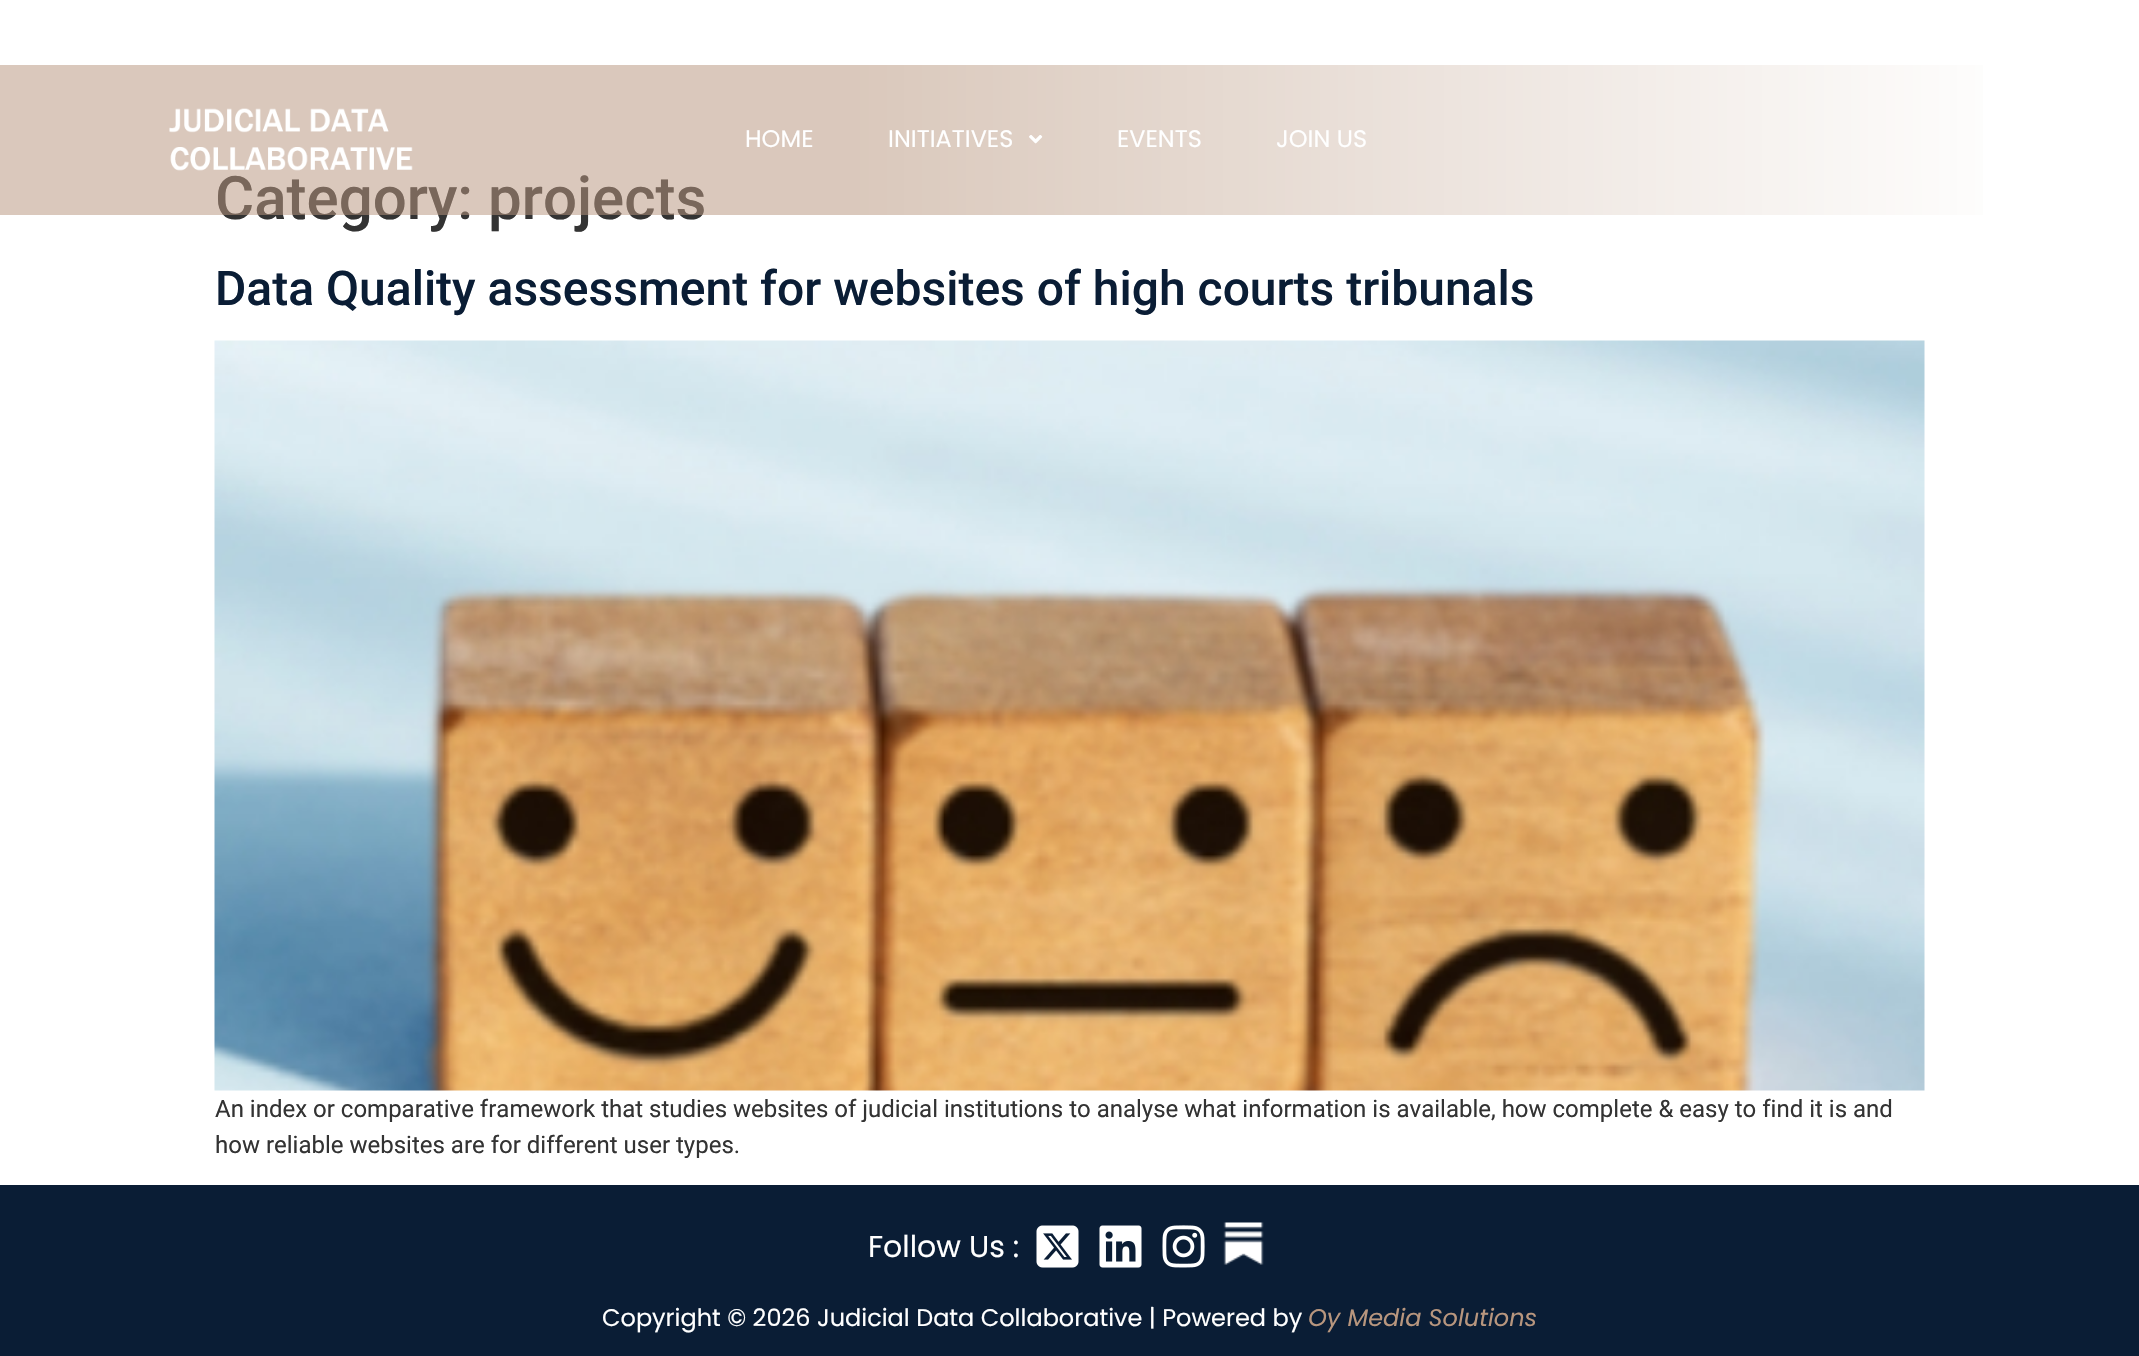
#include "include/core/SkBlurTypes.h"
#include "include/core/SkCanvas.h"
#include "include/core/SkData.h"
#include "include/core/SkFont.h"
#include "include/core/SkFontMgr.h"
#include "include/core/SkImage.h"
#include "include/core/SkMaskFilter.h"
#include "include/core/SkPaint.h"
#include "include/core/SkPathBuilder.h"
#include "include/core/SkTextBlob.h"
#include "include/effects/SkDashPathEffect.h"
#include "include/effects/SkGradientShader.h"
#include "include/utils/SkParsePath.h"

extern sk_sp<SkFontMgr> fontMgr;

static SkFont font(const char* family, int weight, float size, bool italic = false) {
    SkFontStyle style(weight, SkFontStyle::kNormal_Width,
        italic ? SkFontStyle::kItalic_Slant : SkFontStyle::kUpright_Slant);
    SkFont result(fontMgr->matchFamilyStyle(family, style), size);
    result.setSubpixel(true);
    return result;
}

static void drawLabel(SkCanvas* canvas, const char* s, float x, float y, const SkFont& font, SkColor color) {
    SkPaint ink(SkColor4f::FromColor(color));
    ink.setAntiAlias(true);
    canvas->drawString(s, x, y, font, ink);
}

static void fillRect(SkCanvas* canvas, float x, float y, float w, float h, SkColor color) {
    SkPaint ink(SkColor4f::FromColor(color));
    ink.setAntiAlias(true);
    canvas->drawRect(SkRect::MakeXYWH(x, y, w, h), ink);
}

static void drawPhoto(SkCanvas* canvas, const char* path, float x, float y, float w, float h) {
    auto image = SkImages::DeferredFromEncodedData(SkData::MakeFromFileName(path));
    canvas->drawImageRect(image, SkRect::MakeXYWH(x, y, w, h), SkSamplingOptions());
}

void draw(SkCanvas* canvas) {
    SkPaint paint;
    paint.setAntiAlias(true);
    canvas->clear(0xFFFFFFFF);
    SkFont font1 = font("Roboto", 500, 60);
    drawLabel(canvas, "Category: projects", 215, 219, font1, 0xFF333333);
    {
        const SkColor colors[] = {0x85B8967E, 0x00B8967E};
        const float stops[] = {0.4f, 0.95f};
        const SkPoint ends[] = {{0, 140}, {2139, 139}};
        paint.setShader(SkGradientShader::MakeLinear(ends, colors, stops, 2, SkTileMode::kClamp));
        paint.setAlpha(255);
    }
    canvas->drawRect(SkRect::MakeXYWH(0, 65, 1983, 150), paint);
    drawPhoto(canvas, "assets/img1.png", 169, 108, 244, 63);
    SkFont font2 = font("Poppins", 400, 24);
    drawLabel(canvas, "HOME", 745, 147, font2, 0xFFFFFFFF);
    drawLabel(canvas, "INITIATIVES", 888, 147, font2, 0xFFFFFFFF);
    drawPhoto(canvas, "assets/img2.png", 1029, 135, 14, 9);
    drawLabel(canvas, "EVENTS", 1117, 147, font2, 0xFFFFFFFF);
    drawLabel(canvas, "JOIN US", 1276, 147, font2, 0xFFFFFFFF);
    SkFont font3 = font("Roboto", 500, 48);
    drawLabel(canvas, "Data Quality assessment for websites of high courts tribunals", 215, 305, font3, 0xFF0A1D35);
    drawPhoto(canvas, "assets/img3.png", 214, 340, 1711, 751);
    SkFont font4 = font("Roboto", 400, 24);
    drawLabel(canvas, "An index or comparative framework that studies websites of judicial institutions to analyse what information is available, how complete & easy to find it is and", 215, 1117, font4, 0xFF333333);
    drawLabel(canvas, "how reliable websites are for different user types.", 215, 1153, font4, 0xFF333333);
    fillRect(canvas, 0, 1185, 2139, 171, 0xFF0A1D35);
    SkFont font5 = font("Poppins", 400, 30);
    drawLabel(canvas, "Follow Us :", 868, 1257, font5, 0xFFFFFFFF);
    drawPhoto(canvas, "assets/img4.png", 1036, 1225, 43, 43);
    drawPhoto(canvas, "assets/img5.png", 1099, 1225, 43, 43);
    drawPhoto(canvas, "assets/img6.png", 1162, 1225, 43, 43);
    drawPhoto(canvas, "assets/img7.png", 1223, 1222, 41, 43);
    drawLabel(canvas, "Copyright © 2026 Judicial Data Collaborative | Powered by", 602, 1326, font2, 0xFFFFFFFF);
    SkFont font6 = font("Poppins", 400, 24, true);
    drawLabel(canvas, "Oy Media Solutions", 1308, 1326, font6, 0xFFB8967E);
}
